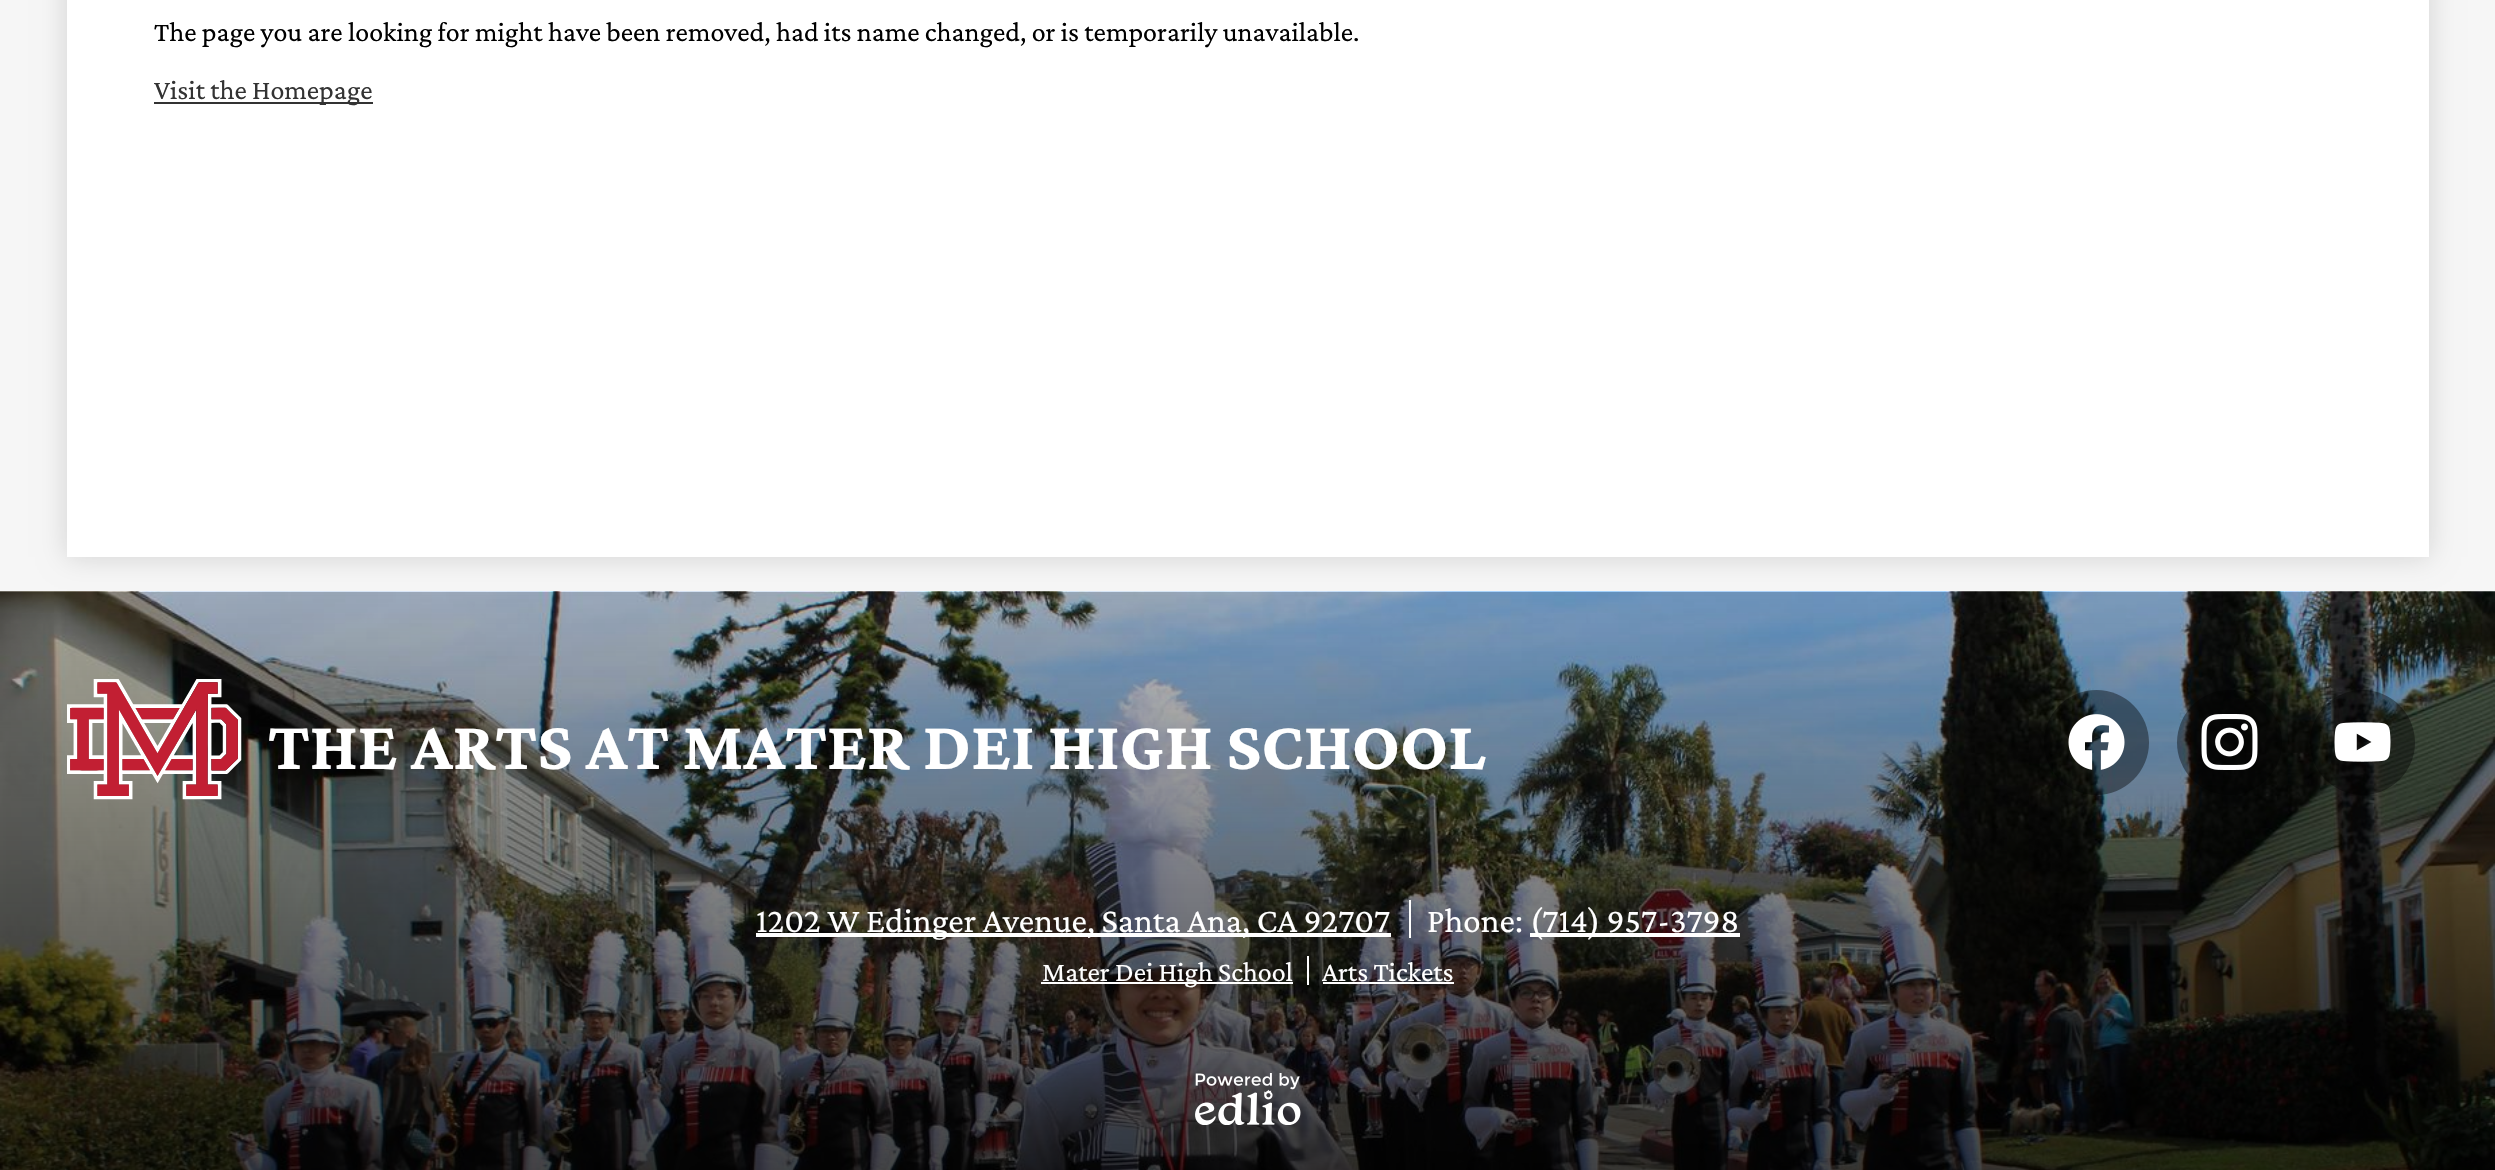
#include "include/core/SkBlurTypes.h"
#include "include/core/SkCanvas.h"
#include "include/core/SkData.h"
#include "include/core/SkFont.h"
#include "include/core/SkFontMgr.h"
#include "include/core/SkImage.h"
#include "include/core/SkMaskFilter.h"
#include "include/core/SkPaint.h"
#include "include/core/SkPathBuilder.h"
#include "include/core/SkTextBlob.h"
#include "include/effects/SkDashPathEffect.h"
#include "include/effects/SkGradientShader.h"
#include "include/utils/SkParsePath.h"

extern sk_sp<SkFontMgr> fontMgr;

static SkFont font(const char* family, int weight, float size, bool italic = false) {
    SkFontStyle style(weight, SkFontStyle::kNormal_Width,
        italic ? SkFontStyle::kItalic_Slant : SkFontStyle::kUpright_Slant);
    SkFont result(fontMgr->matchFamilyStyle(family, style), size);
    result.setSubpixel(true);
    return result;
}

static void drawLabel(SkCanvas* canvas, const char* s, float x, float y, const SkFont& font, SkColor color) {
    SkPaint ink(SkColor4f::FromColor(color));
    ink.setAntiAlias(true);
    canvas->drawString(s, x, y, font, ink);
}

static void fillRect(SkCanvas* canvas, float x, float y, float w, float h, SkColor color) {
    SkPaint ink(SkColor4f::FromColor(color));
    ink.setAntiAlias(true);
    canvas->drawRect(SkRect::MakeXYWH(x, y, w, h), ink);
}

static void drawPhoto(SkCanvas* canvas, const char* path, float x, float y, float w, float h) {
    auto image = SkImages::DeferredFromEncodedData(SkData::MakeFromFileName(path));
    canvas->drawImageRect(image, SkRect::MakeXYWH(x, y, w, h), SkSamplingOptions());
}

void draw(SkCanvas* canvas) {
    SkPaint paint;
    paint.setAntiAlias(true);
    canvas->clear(0xFFF6F6F6);
    drawPhoto(canvas, "assets/img1.png", 0, 591, 2495, 579);
    paint.setColor(0x26000000);
    paint.setMaskFilter(SkMaskFilter::MakeBlur(kNormal_SkBlurStyle, 13));
    canvas->drawRect(SkRect::MakeXYWH(67, -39, 2362, 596), paint);
    paint.setMaskFilter(nullptr);
    fillRect(canvas, 67, 0, 2362, 557, 0xFFFFFFFF);
    SkFont font1 = font("Crimson Pro", 400, 28);
    drawLabel(canvas, "The page you are looking for might have been removed, had its name changed, or is temporarily unavailable.", 154, 41, font1, 0xFF000000);
    fillRect(canvas, 154, 102, 219, 2, 0xFF333333);
    drawLabel(canvas, "Visit the Homepage", 154, 99, font1, 0xFF333333);
    drawPhoto(canvas, "assets/img2.png", 67, 679, 175, 121);
    SkFont font2 = font("Crimson Pro", 700, 70);
    drawLabel(canvas, "THE ARTS AT MATER DEI HIGH SCHOOL", 268, 769, font2, 0xFFFFFFFF);
    paint.setColor(0x66000000);
    canvas->drawCircle(2096.5f, 742.5f, 52.5f, paint);
    drawPhoto(canvas, "assets/img3.png", 2068, 714, 57, 56);
    canvas->drawCircle(2229.5f, 742.5f, 52.5f, paint);
    drawPhoto(canvas, "assets/img4.png", 2201, 714, 57, 56);
    canvas->drawCircle(2362.5f, 742.5f, 52.5f, paint);
    drawPhoto(canvas, "assets/img5.png", 2334, 722, 57, 40);
    fillRect(canvas, 1409, 900, 2, 38, 0xFFFFFFFF);
    fillRect(canvas, 756, 933, 635, 4, 0xFFFFFFFF);
    SkFont font3 = font("Crimson Pro", 400, 35);
    drawLabel(canvas, "1202 W Edinger Avenue, Santa Ana, CA 92707", 756, 932, font3, 0xFFFFFFFF);
    drawLabel(canvas, "Phone:", 1427, 932, font3, 0xFFFFFFFF);
    fillRect(canvas, 1530, 933, 210, 4, 0xFFFFFFFF);
    drawLabel(canvas, "(714) 957-3798", 1530, 932, font3, 0xFFFFFFFF);
    fillRect(canvas, 1307, 956, 2, 29, 0xFFFFFFFF);
    fillRect(canvas, 1041, 982, 252, 2, 0xFFFFFFFF);
    drawLabel(canvas, "Mater Dei High School", 1042, 981, font1, 0xFFFFFFFF);
    drawLabel(canvas, "Arts Tickets", 1322, 981, font1, 0xFFFFFFFF);
    fillRect(canvas, 1323, 982, 131, 2, 0xFFFFFFFF);
    drawPhoto(canvas, "assets/img6.png", 1195, 1073, 106, 52);
}
